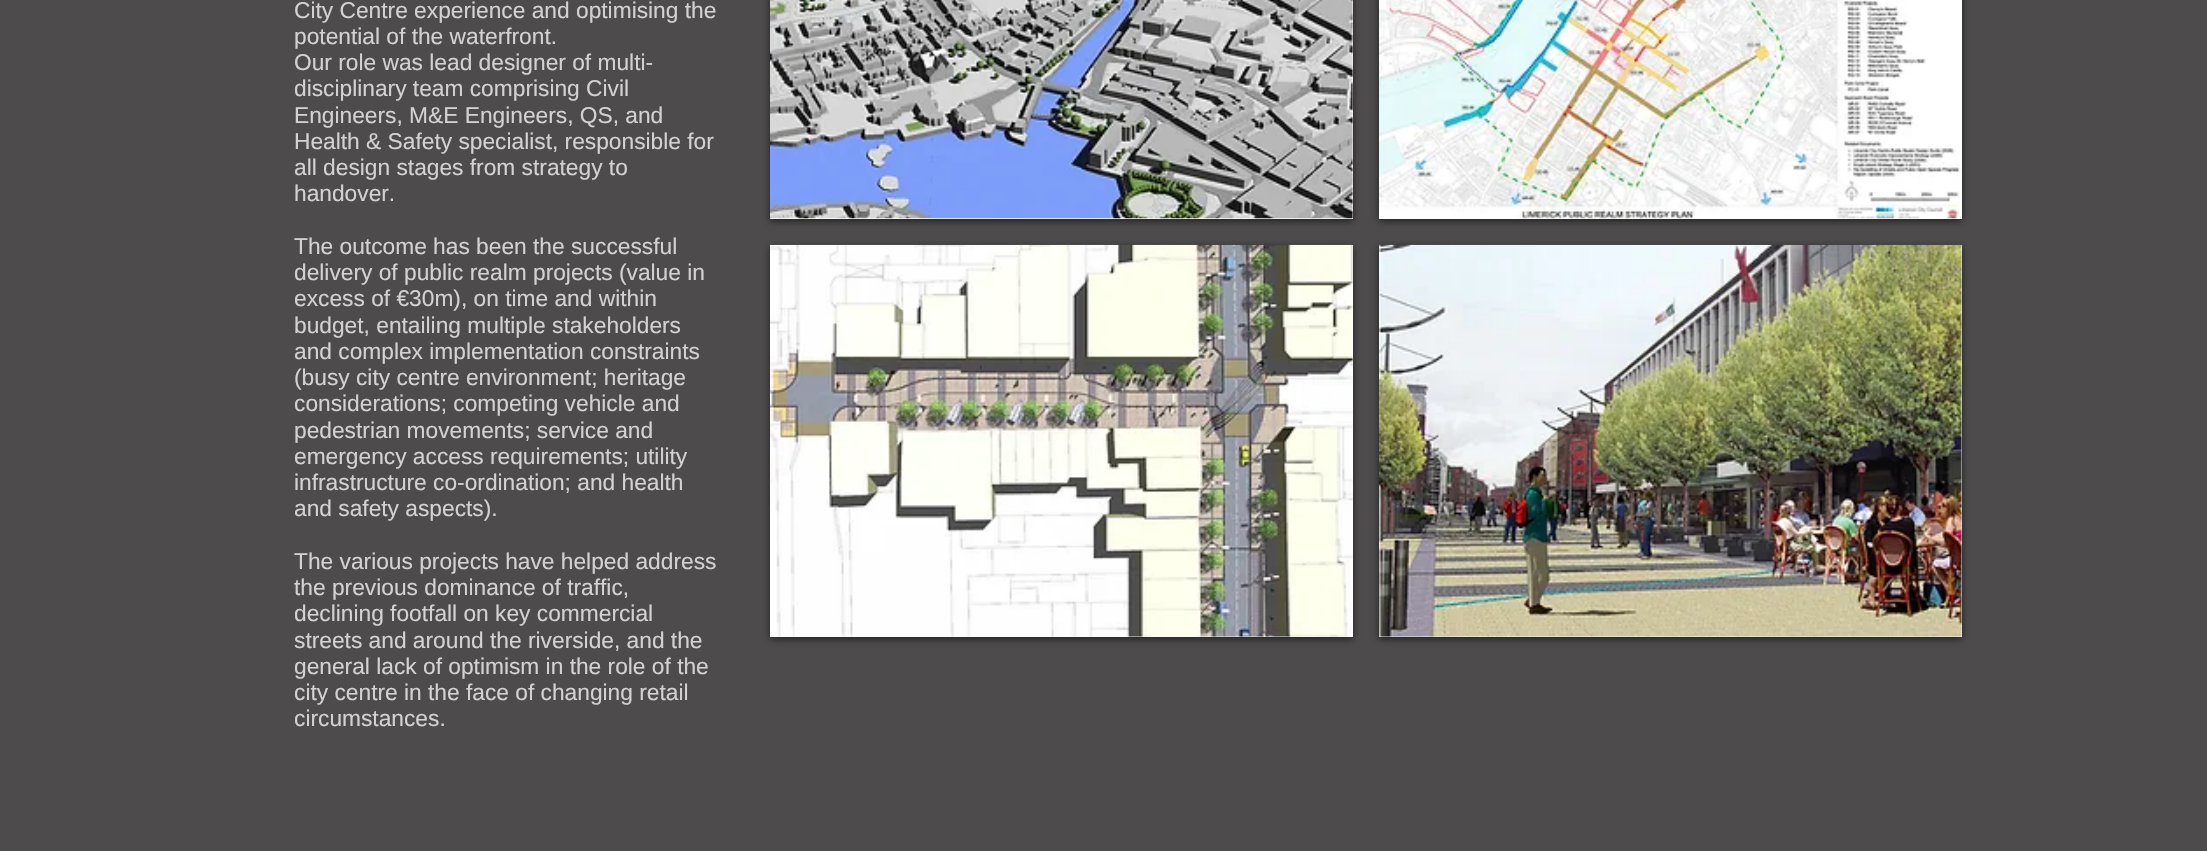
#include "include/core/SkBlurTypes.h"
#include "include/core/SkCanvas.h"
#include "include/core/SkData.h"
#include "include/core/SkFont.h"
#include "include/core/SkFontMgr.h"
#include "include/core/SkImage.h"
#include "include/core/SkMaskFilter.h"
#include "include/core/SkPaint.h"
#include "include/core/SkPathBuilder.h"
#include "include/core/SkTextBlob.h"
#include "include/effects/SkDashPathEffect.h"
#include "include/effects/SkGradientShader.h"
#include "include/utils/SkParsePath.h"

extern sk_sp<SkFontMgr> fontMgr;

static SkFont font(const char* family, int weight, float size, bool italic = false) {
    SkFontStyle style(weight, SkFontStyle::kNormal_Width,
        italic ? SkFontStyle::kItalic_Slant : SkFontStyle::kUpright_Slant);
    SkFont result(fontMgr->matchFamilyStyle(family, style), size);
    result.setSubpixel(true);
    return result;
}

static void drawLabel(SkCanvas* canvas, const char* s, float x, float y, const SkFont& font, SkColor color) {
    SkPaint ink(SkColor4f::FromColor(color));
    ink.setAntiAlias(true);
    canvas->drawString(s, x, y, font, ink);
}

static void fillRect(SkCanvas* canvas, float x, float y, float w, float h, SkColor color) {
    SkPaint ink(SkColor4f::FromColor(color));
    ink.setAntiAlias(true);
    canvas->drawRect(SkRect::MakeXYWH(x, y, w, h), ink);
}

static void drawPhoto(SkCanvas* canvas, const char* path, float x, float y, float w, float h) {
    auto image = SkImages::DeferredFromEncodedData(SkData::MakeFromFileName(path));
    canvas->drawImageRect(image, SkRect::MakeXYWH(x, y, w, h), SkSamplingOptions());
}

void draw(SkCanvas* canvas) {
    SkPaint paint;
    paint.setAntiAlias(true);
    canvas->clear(0xFF4D4B4B);
    SkFont font1 = font("Liberation Sans", 400, 22.75f);
    drawLabel(canvas, "City Centre experience and optimising the", 294, 18, font1, 0xFFD2D2D2);
    drawLabel(canvas, "potential of the waterfront.", 294, 44, font1, 0xFFD2D2D2);
    drawLabel(canvas, "Our role was lead designer of multi-", 294, 70, font1, 0xFFD2D2D2);
    drawLabel(canvas, "disciplinary team comprising Civil", 294, 96, font1, 0xFFD2D2D2);
    drawLabel(canvas, "Engineers, M&E Engineers, QS, and", 294, 123, font1, 0xFFD2D2D2);
    drawLabel(canvas, "Health & Safety specialist, responsible for", 294, 149, font1, 0xFFD2D2D2);
    drawLabel(canvas, "all design stages from strategy to", 294, 175, font1, 0xFFD2D2D2);
    drawLabel(canvas, "handover.", 294, 201, font1, 0xFFD2D2D2);
    drawLabel(canvas, "The outcome has been the successful", 294, 254, font1, 0xFFD2D2D2);
    drawLabel(canvas, "delivery of public realm projects (value in", 294, 280, font1, 0xFFD2D2D2);
    drawLabel(canvas, "excess of €30m), on time and within", 294, 306, font1, 0xFFD2D2D2);
    drawLabel(canvas, "budget, entailing multiple stakeholders", 294, 333, font1, 0xFFD2D2D2);
    drawLabel(canvas, "and complex implementation constraints", 294, 359, font1, 0xFFD2D2D2);
    drawLabel(canvas, "(busy city centre environment; heritage", 294, 385, font1, 0xFFD2D2D2);
    drawLabel(canvas, "considerations; competing vehicle and", 294, 411, font1, 0xFFD2D2D2);
    drawLabel(canvas, "pedestrian movements; service and", 294, 438, font1, 0xFFD2D2D2);
    drawLabel(canvas, "emergency access requirements; utility", 294, 464, font1, 0xFFD2D2D2);
    drawLabel(canvas, "infrastructure co-ordination; and health", 294, 490, font1, 0xFFD2D2D2);
    drawLabel(canvas, "and safety aspects).", 294, 516, font1, 0xFFD2D2D2);
    drawLabel(canvas, "The various projects have helped address", 294, 569, font1, 0xFFD2D2D2);
    drawLabel(canvas, "the previous dominance of traffic,", 294, 595, font1, 0xFFD2D2D2);
    drawLabel(canvas, "declining footfall on key commercial", 294, 621, font1, 0xFFD2D2D2);
    drawLabel(canvas, "streets and around the riverside, and the", 294, 648, font1, 0xFFD2D2D2);
    drawLabel(canvas, "general lack of optimism in the role of the", 294, 674, font1, 0xFFD2D2D2);
    drawLabel(canvas, "city centre in the face of changing retail", 294, 700, font1, 0xFFD2D2D2);
    drawLabel(canvas, "circumstances.", 294, 726, font1, 0xFFD2D2D2);
    paint.setColor(0x99000000);
    paint.setMaskFilter(SkMaskFilter::MakeBlur(kNormal_SkBlurStyle, 3.5f));
    canvas->drawRect(SkRect::MakeXYWH(770, -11, 583, 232), paint);
    paint.setMaskFilter(nullptr);
    fillRect(canvas, 770, 0, 583, 219, 0xFFFFFFFF);
    drawPhoto(canvas, "assets/img1.png", 770, 0, 583, 219);
    paint.setMaskFilter(SkMaskFilter::MakeBlur(kNormal_SkBlurStyle, 3.5f));
    canvas->drawRect(SkRect::MakeXYWH(1379, -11, 583, 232), paint);
    paint.setMaskFilter(nullptr);
    fillRect(canvas, 1379, 0, 583, 219, 0xFFFFFFFF);
    drawPhoto(canvas, "assets/img2.png", 1379, 0, 583, 219);
    paint.setMaskFilter(SkMaskFilter::MakeBlur(kNormal_SkBlurStyle, 3.5f));
    canvas->drawRect(SkRect::MakeXYWH(770, 247, 583, 392), paint);
    paint.setMaskFilter(nullptr);
    fillRect(canvas, 770, 245, 583, 392, 0xFFFFFFFF);
    drawPhoto(canvas, "assets/img3.png", 770, 244, 583, 393);
    paint.setMaskFilter(SkMaskFilter::MakeBlur(kNormal_SkBlurStyle, 3.5f));
    canvas->drawRect(SkRect::MakeXYWH(1379, 247, 583, 392), paint);
    paint.setMaskFilter(nullptr);
    fillRect(canvas, 1379, 245, 583, 392, 0xFFFFFFFF);
    drawPhoto(canvas, "assets/img4.png", 1379, 244, 583, 393);
}
